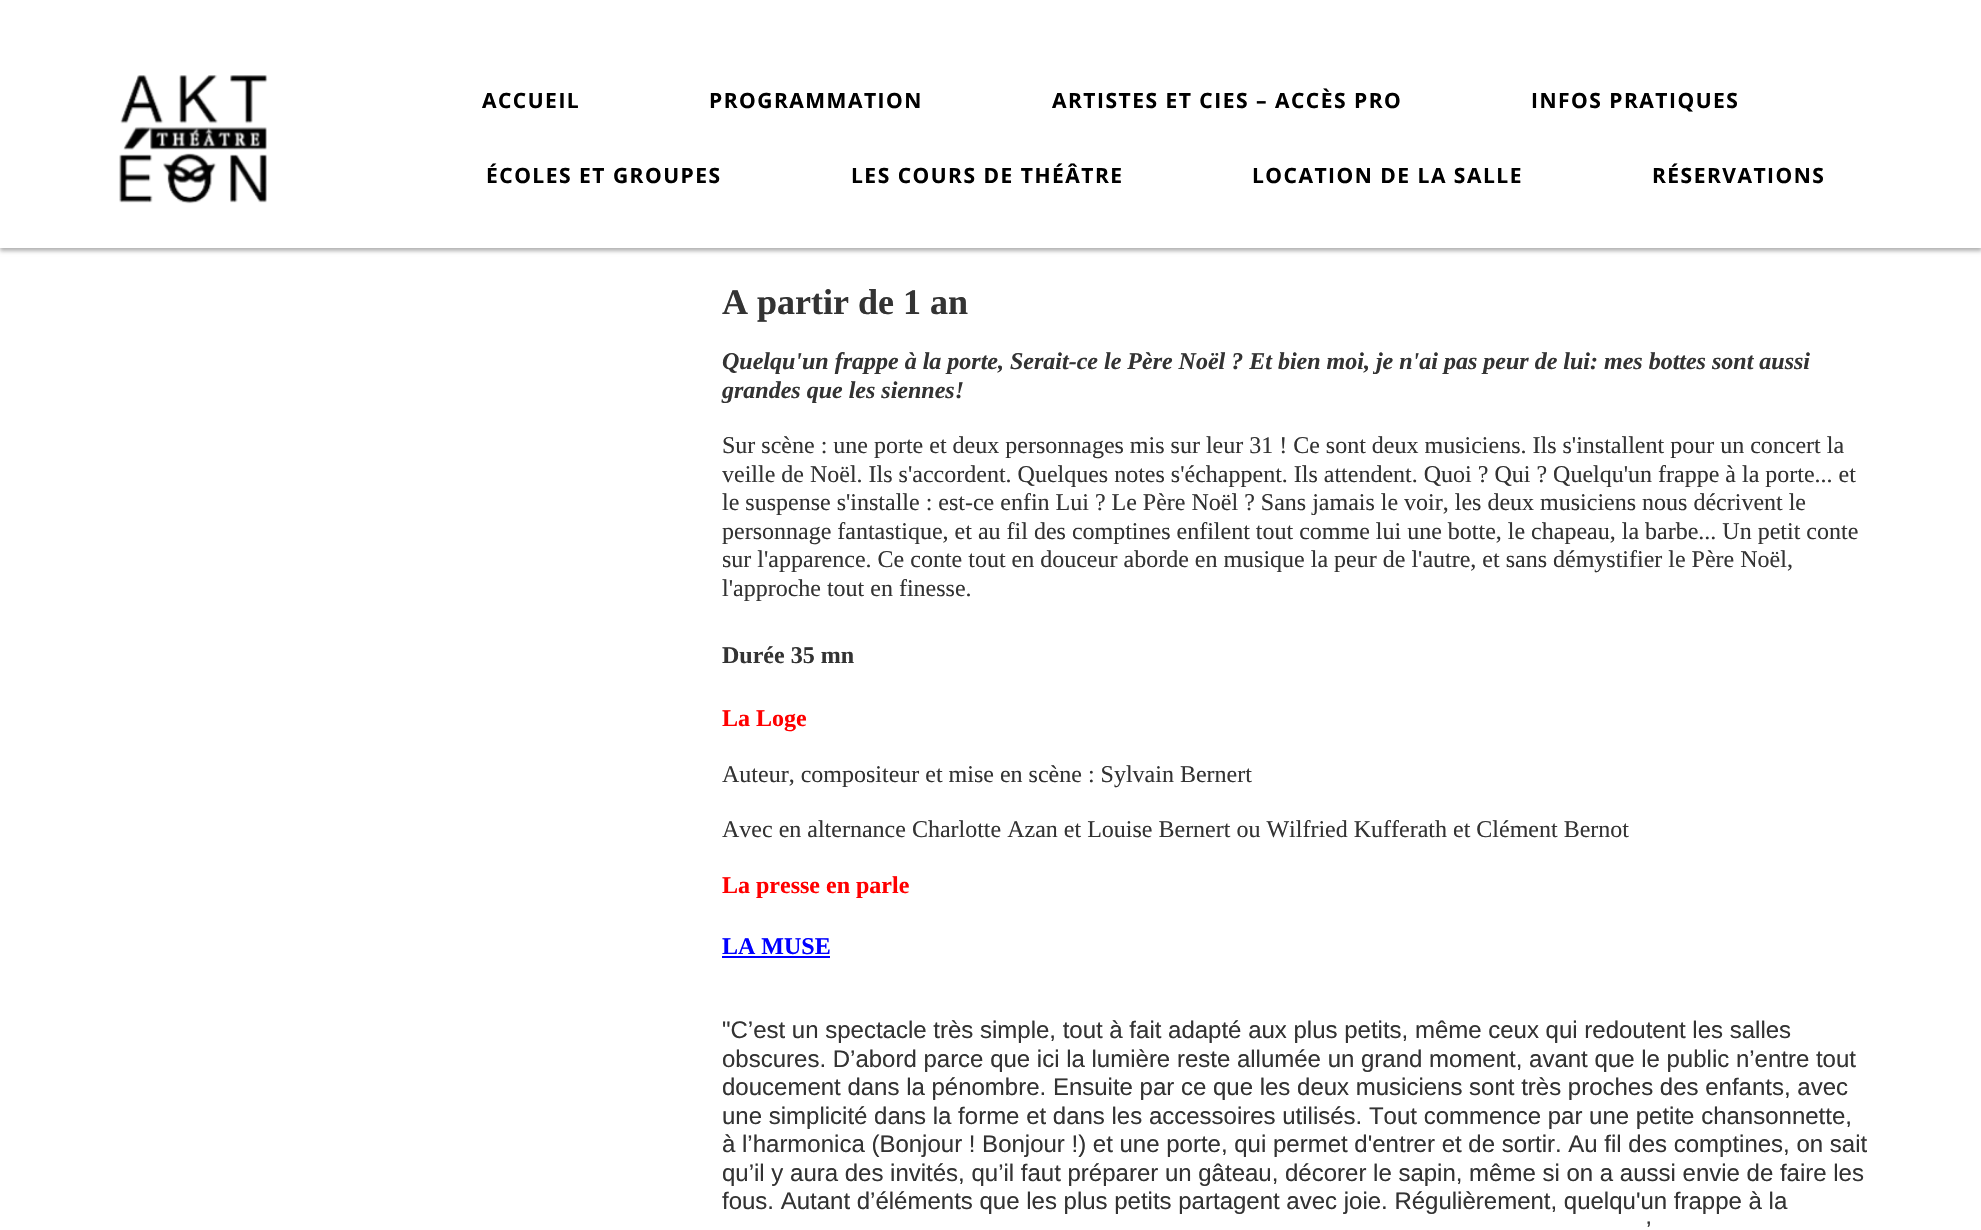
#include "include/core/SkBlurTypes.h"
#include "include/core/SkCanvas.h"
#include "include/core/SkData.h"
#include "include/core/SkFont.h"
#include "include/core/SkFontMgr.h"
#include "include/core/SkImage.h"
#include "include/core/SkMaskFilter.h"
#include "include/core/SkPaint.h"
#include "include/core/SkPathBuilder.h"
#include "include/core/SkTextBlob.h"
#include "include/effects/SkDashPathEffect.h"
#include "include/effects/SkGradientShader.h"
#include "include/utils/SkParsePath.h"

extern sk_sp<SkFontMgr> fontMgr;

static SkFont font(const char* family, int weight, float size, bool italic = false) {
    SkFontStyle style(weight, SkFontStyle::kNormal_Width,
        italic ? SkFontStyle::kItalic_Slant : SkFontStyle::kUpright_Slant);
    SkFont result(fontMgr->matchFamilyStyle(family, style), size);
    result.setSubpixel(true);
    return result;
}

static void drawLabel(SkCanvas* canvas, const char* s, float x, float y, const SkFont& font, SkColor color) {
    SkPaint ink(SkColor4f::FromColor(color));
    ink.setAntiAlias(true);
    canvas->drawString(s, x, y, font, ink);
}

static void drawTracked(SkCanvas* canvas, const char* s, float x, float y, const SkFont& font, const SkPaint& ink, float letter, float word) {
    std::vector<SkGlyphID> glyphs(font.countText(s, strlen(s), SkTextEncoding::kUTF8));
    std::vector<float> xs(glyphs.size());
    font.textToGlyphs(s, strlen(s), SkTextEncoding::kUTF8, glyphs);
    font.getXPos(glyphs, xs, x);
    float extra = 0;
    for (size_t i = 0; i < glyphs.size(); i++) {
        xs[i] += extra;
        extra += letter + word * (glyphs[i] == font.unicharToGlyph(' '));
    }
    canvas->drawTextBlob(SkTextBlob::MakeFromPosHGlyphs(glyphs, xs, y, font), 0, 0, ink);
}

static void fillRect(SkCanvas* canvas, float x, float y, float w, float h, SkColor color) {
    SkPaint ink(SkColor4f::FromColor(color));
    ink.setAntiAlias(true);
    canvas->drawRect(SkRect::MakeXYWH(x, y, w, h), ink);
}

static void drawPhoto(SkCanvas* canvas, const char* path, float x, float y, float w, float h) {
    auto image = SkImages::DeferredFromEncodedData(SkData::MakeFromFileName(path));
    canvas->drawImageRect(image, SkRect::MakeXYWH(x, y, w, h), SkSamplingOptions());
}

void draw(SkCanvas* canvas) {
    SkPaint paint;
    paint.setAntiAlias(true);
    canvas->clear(0xFFFFFFFF);
    paint.setColor(0x4D000000);
    paint.setMaskFilter(SkMaskFilter::MakeBlur(kNormal_SkBlurStyle, 2));
    canvas->drawRect(SkRect::MakeXYWH(0, 3, 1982, 248), paint);
    paint.setMaskFilter(nullptr);
    fillRect(canvas, 0, 0, 1981, 248, 0xFFFFFFFF);
    drawPhoto(canvas, "assets/img1.png", 119, 75, 149, 129);
    SkFont font1 = font("Open Sans", 700, 21);
    paint.setColor(0xFF000000);
    drawTracked(canvas, "ACCUEIL", 482, 108, font1, paint, 1.5f, 0);
    drawTracked(canvas, "PROGRAMMATION", 709, 108, font1, paint, 1.5f, 0);
    drawTracked(canvas, "ARTISTES ET CIES – ACCÈS PRO", 1052, 108, font1, paint, 1.5f, 0);
    drawTracked(canvas, "INFOS PRATIQUES", 1531, 108, font1, paint, 1.5f, 0);
    drawTracked(canvas, "ÉCOLES ET GROUPES", 486, 183, font1, paint, 1.5f, 0);
    drawTracked(canvas, "LES COURS DE THÉÂTRE", 851, 183, font1, paint, 1.5f, 0);
    drawTracked(canvas, "LOCATION DE LA SALLE", 1252, 183, font1, paint, 1.5f, 0);
    drawTracked(canvas, "RÉSERVATIONS", 1652, 183, font1, paint, 1.5f, 0);
    SkFont font2 = font("Liberation Serif", 700, 36);
    drawLabel(canvas, "A partir de 1 an", 722, 314, font2, 0xFF333333);
    SkFont font3 = font("Liberation Serif", 700, 24, true);
    drawLabel(canvas, "Quelqu'un frappe à la porte, Serait-ce le Père Noël ? Et bien moi, je n'ai pas peur de lui: mes bottes sont aussi", 722, 369, font3, 0xFF333333);
    drawLabel(canvas, "grandes que les siennes!", 722, 398, font3, 0xFF333333);
    SkFont font4 = font("Liberation Serif", 400, 24);
    drawLabel(canvas, "Sur scène : une porte et deux personnages mis sur leur 31 ! Ce sont deux musiciens. Ils s'installent pour un concert la", 722, 453, font4, 0xFF333333);
    drawLabel(canvas, "veille de Noël. Ils s'accordent. Quelques notes s'échappent. Ils attendent. Quoi ? Qui ? Quelqu'un frappe à la porte... et", 722, 482, font4, 0xFF333333);
    drawLabel(canvas, "le suspense s'installe : est-ce enfin Lui ? Le Père Noël ? Sans jamais le voir, les deux musiciens nous décrivent le", 722, 510, font4, 0xFF333333);
    drawLabel(canvas, "personnage fantastique, et au fil des comptines enfilent tout comme lui une botte, le chapeau, la barbe... Un petit conte", 722, 539, font4, 0xFF333333);
    drawLabel(canvas, "sur l'apparence. Ce conte tout en douceur aborde en musique la peur de l'autre, et sans démystifier le Père Noël,", 722, 567, font4, 0xFF333333);
    drawLabel(canvas, "l'approche tout en finesse.", 722, 596, font4, 0xFF333333);
    SkFont font5 = font("Liberation Serif", 700, 24);
    drawLabel(canvas, "Durée 35 mn", 722, 663, font5, 0xFF333333);
    drawLabel(canvas, "La Loge", 722, 726, font5, 0xFFFF0000);
    drawLabel(canvas, "Auteur, compositeur et mise en scène : Sylvain Bernert", 722, 782, font4, 0xFF333333);
    drawLabel(canvas, "Avec en alternance Charlotte Azan et Louise Bernert ou Wilfried Kufferath et Clément Bernot", 722, 837, font4, 0xFF333333);
    drawLabel(canvas, "La presse en parle", 722, 893, font5, 0xFFFF0000);
    drawLabel(canvas, "LA MUSE", 722, 954, font5, 0xFF0000FF);
    fillRect(canvas, 722, 956, 108, 2, 0xFF0000FF);
    SkFont font6 = font("Liberation Sans", 400, 24);
    drawLabel(canvas, "\"C’est un spectacle très simple, tout à fait adapté aux plus petits, même ceux qui redoutent les salles", 722, 1038, font6, 0xFF333333);
    drawLabel(canvas, "obscures. D’abord parce que ici la lumière reste allumée un grand moment, avant que le public n’entre tout", 722, 1067, font6, 0xFF333333);
    drawLabel(canvas, "doucement dans la pénombre. Ensuite par ce que les deux musiciens sont très proches des enfants, avec", 722, 1095, font6, 0xFF333333);
    drawLabel(canvas, "une simplicité dans la forme et dans les accessoires utilisés. Tout commence par une petite chansonnette,", 722, 1124, font6, 0xFF333333);
    drawLabel(canvas, "à l’harmonica (Bonjour ! Bonjour !) et une porte, qui permet d'entrer et de sortir. Au fil des comptines, on sait", 722, 1152, font6, 0xFF333333);
    drawLabel(canvas, "qu’il y aura des invités, qu’il faut préparer un gâteau, décorer le sapin, même si on a aussi envie de faire les", 722, 1181, font6, 0xFF333333);
    drawLabel(canvas, "fous. Autant d’éléments que les plus petits partagent avec joie. Régulièrement, quelqu'un frappe à la", 722, 1209, font6, 0xFF333333);
    drawLabel(canvas, "’", 1646, 1238, font6, 0xFF333333);
}
